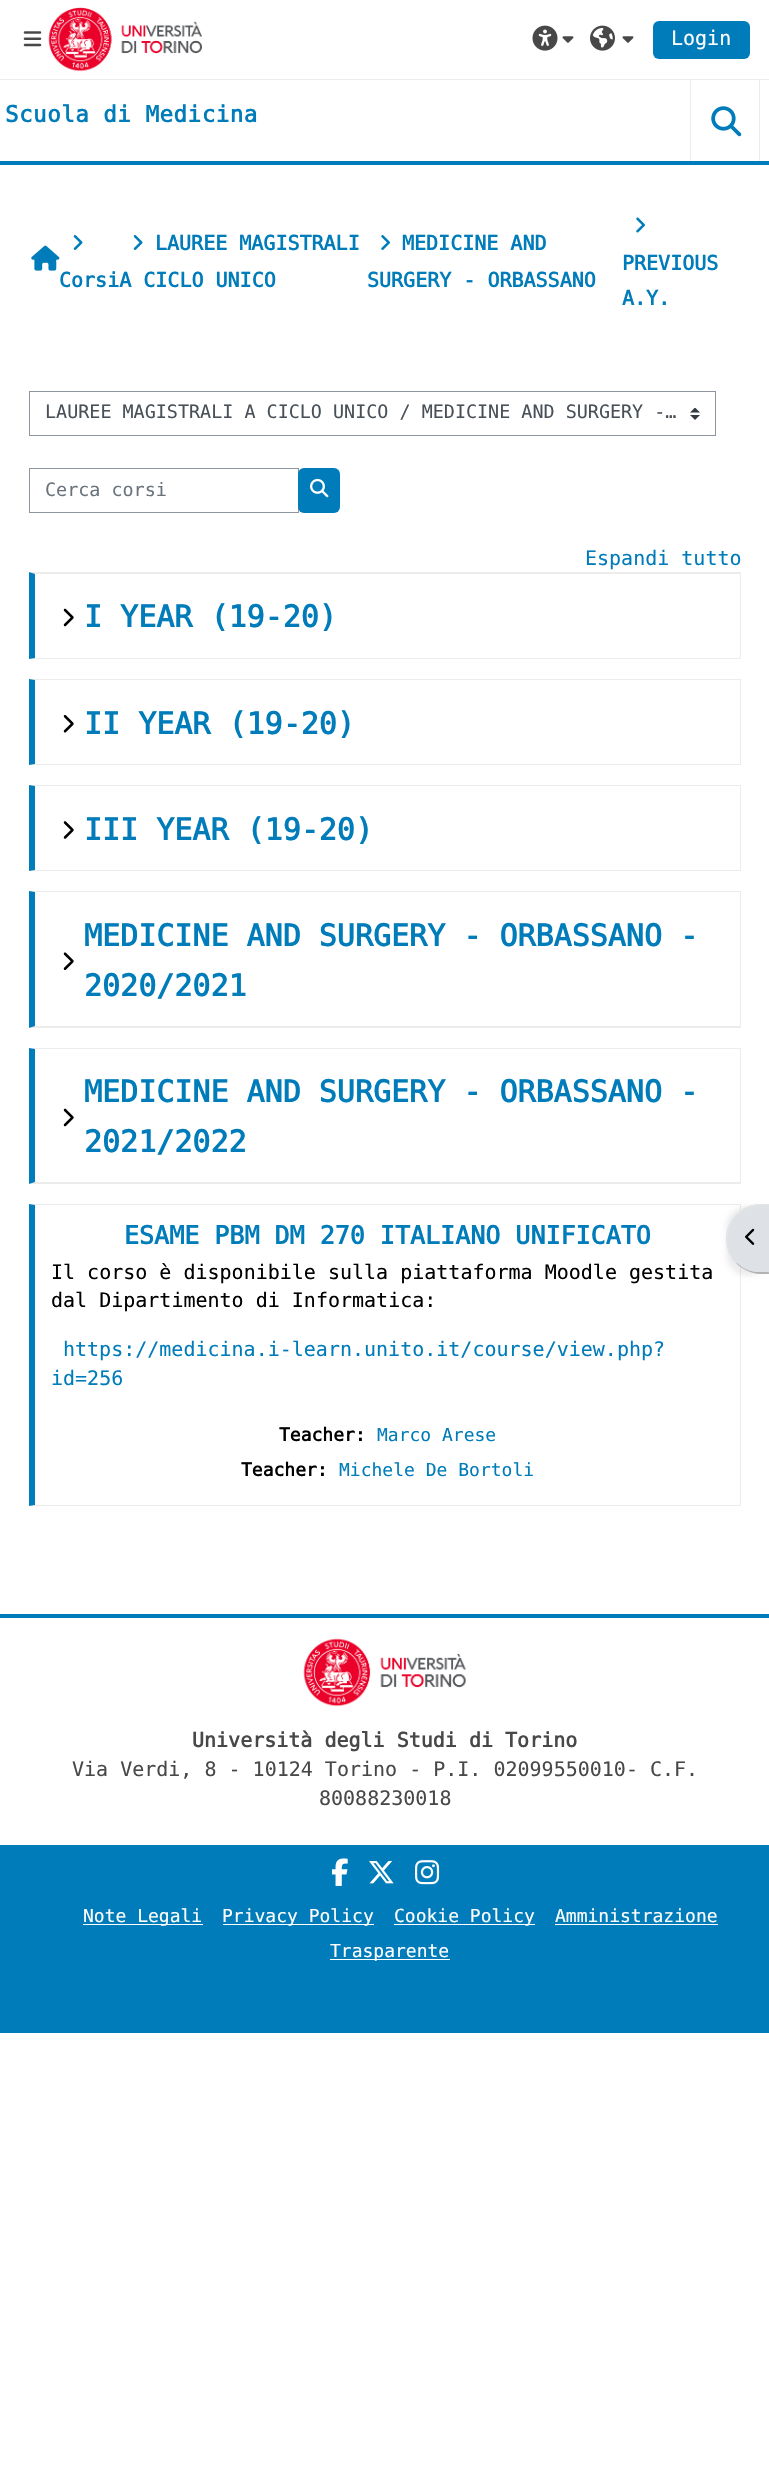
#include "include/core/SkBlurTypes.h"
#include "include/core/SkCanvas.h"
#include "include/core/SkData.h"
#include "include/core/SkFont.h"
#include "include/core/SkFontMgr.h"
#include "include/core/SkImage.h"
#include "include/core/SkMaskFilter.h"
#include "include/core/SkPaint.h"
#include "include/core/SkPathBuilder.h"
#include "include/core/SkTextBlob.h"
#include "include/effects/SkDashPathEffect.h"
#include "include/effects/SkGradientShader.h"
#include "include/utils/SkParsePath.h"

extern sk_sp<SkFontMgr> fontMgr;

static SkFont font(const char* family, int weight, float size, bool italic = false) {
    SkFontStyle style(weight, SkFontStyle::kNormal_Width,
        italic ? SkFontStyle::kItalic_Slant : SkFontStyle::kUpright_Slant);
    SkFont result(fontMgr->matchFamilyStyle(family, style), size);
    result.setSubpixel(true);
    return result;
}

static void drawLabel(SkCanvas* canvas, const char* s, float x, float y, const SkFont& font, SkColor color) {
    SkPaint ink(SkColor4f::FromColor(color));
    ink.setAntiAlias(true);
    canvas->drawString(s, x, y, font, ink);
}

static void drawTracked(SkCanvas* canvas, const char* s, float x, float y, const SkFont& font, const SkPaint& ink, float letter, float word) {
    std::vector<SkGlyphID> glyphs(font.countText(s, strlen(s), SkTextEncoding::kUTF8));
    std::vector<float> xs(glyphs.size());
    font.textToGlyphs(s, strlen(s), SkTextEncoding::kUTF8, glyphs);
    font.getXPos(glyphs, xs, x);
    float extra = 0;
    for (size_t i = 0; i < glyphs.size(); i++) {
        xs[i] += extra;
        extra += letter + word * (glyphs[i] == font.unicharToGlyph(' '));
    }
    canvas->drawTextBlob(SkTextBlob::MakeFromPosHGlyphs(glyphs, xs, y, font), 0, 0, ink);
}

static void fillRect(SkCanvas* canvas, float x, float y, float w, float h, SkColor color) {
    SkPaint ink(SkColor4f::FromColor(color));
    ink.setAntiAlias(true);
    canvas->drawRect(SkRect::MakeXYWH(x, y, w, h), ink);
}

static void fillRRect(SkCanvas* canvas, float x, float y, float w, float h, float radius, SkColor color) {
    SkPaint ink(SkColor4f::FromColor(color));
    ink.setAntiAlias(true);
    canvas->drawRoundRect(SkRect::MakeXYWH(x, y, w, h), radius, radius, ink);
}

static void drawPhoto(SkCanvas* canvas, const char* path, float x, float y, float w, float h) {
    auto image = SkImages::DeferredFromEncodedData(SkData::MakeFromFileName(path));
    canvas->drawImageRect(image, SkRect::MakeXYWH(x, y, w, h), SkSamplingOptions());
}

static SkPath parsePath(const char* data, bool evenOdd = false) {
    SkPath result = *SkParsePath::FromSVGString(data);
    if (evenOdd) result.setFillType(SkPathFillType::kEvenOdd);
    return result;
}

void draw(SkCanvas* canvas) {
    SkPaint paint;
    paint.setAntiAlias(true);
    canvas->clear(0xFFFFFFFF);
    fillRect(canvas, 0, 161, 769, 4, 0xFF007CBA);
    fillRect(canvas, 0, 79, 769, 1, 0xFFECECEC);
    drawPhoto(canvas, "assets/img1.png", 23, 31, 19, 16);
    drawPhoto(canvas, "assets/img2.png", 48, 7, 154, 65);
    drawPhoto(canvas, "assets/img3.png", 532, 25, 26, 26);
    drawPhoto(canvas, "assets/img4.png", 562, 36, 12, 7);
    drawPhoto(canvas, "assets/img5.png", 590, 25, 25, 26);
    drawPhoto(canvas, "assets/img4.png", 622, 36, 12, 7);
    fillRRect(canvas, 653, 21, 97, 38, 6, 0xFF007CBA);
    SkFont font1 = font("DejaVu Sans Mono", 400, 20);
    drawLabel(canvas, "Login", 671, 45, font1, 0xFFFFFFFF);
    SkFont font2 = font("DejaVu Sans Mono", 700, 22.5f);
    paint.setColor(0xFF007CBA);
    drawTracked(canvas, "Scuola di Medicina", 5, 122, font2, paint, 0.5f, 0);
    fillRect(canvas, 759, 80, 1, 81, 0xFFECECEC);
    fillRect(canvas, 690, 80, 1, 81, 0xFFECECEC);
    drawPhoto(canvas, "assets/img6.png", 711, 106, 31, 31);
    drawPhoto(canvas, "assets/img7.png", 31, 245, 29, 26);
    drawPhoto(canvas, "assets/img8.png", 133, 235, 10, 15);
    SkFont font3 = font("DejaVu Sans Mono", 700, 20);
    drawLabel(canvas, "LAUREE MAGISTRALI", 155, 250, font3, 0xFF007CBA);
    drawPhoto(canvas, "assets/img9.png", 381, 235, 9, 15);
    drawLabel(canvas, "MEDICINE AND", 402, 250, font3, 0xFF007CBA);
    drawLabel(canvas, "SURGERY - ORBASSANO", 367, 287, font3, 0xFF007CBA);
    drawPhoto(canvas, "assets/img10.png", 636, 217, 9, 16);
    drawLabel(canvas, "PREVIOUS", 622, 270, font3, 0xFF007CBA);
    drawLabel(canvas, "A.Y.", 622, 305, font3, 0xFF007CBA);
    drawPhoto(canvas, "assets/img8.png", 73, 235, 10, 15);
    drawLabel(canvas, "CorsiA CICLO UNICO", 59, 287, font3, 0xFF007CBA);
    drawPhoto(canvas, "assets/img11.png", 690, 408, 10, 12);
    paint.setStroke(true);
    paint.setStrokeWidth(1);
    paint.setColor(0xFF8F959E);
    canvas->drawRect(SkRect::MakeXYWH(29.5f, 391.5f, 686, 44), paint);
    SkFont font4 = font("DejaVu Sans Mono", 400, 18.4f);
    drawLabel(canvas, "LAUREE MAGISTRALI A CICLO UNICO / MEDICINE AND SURGERY -…", 45, 418, font4, 0xFF495057);
    canvas->drawRect(SkRect::MakeXYWH(29.5f, 468.5f, 269, 44), paint);
    drawLabel(canvas, "Cerca corsi", 45, 496, font4, 0xFF6A737B);
    fillRRect(canvas, 298, 468, 42, 45, 6, 0xFF007CBA);
    drawPhoto(canvas, "assets/img12.png", 310, 478, 19, 20);
    drawLabel(canvas, "Espandi tutto", 585, 565, font1, 0xFF007CBA);
    paint.setStroke(false);
    paint.setColor(0xFFECECEC);
    canvas->drawPath(parsePath("M29 572H741L740 574H35Z"), paint);
    fillRect(canvas, 740, 573, 1, 86, 0xFFECECEC);
    canvas->drawPath(parsePath("M741 659H29L35 658H740Z"), paint);
    paint.setColor(0xFF007CBA);
    canvas->drawPath(parsePath("M29 659V572L35 574V658Z"), paint);
    drawPhoto(canvas, "assets/img13.png", 63, 608, 11, 19);
    SkFont font5 = font("DejaVu Sans Mono", 700, 30);
    drawLabel(canvas, "I YEAR (19-20)", 84, 627, font5, 0xFF007CBA);
    paint.setColor(0xFFECECEC);
    canvas->drawPath(parsePath("M29 679H741L740 680H35Z"), paint);
    fillRect(canvas, 740, 679, 1, 86, 0xFFECECEC);
    canvas->drawPath(parsePath("M741 765H29L35 764H740Z"), paint);
    paint.setColor(0xFF007CBA);
    canvas->drawPath(parsePath("M29 765V679L35 680V764Z"), paint);
    drawPhoto(canvas, "assets/img14.png", 63, 715, 11, 18);
    drawLabel(canvas, "II YEAR (19-20)", 84, 734, font5, 0xFF007CBA);
    paint.setColor(0xFFECECEC);
    canvas->drawPath(parsePath("M29 785H741L740 786H35Z"), paint);
    fillRect(canvas, 740, 785, 1, 86, 0xFFECECEC);
    canvas->drawPath(parsePath("M741 871H29L35 870H740Z"), paint);
    paint.setColor(0xFF007CBA);
    canvas->drawPath(parsePath("M29 871V785L35 786V870Z"), paint);
    drawPhoto(canvas, "assets/img15.png", 63, 821, 11, 18);
    drawLabel(canvas, "III YEAR (19-20)", 84, 840, font5, 0xFF007CBA);
    paint.setColor(0xFFECECEC);
    canvas->drawPath(parsePath("M29 891H741L740 892H35Z"), paint);
    fillRect(canvas, 740, 891, 1, 137, 0xFFECECEC);
    canvas->drawPath(parsePath("M741 1028H29L35 1026H740Z"), paint);
    paint.setColor(0xFF007CBA);
    canvas->drawPath(parsePath("M29 1028V891L35 892V1026Z"), paint);
    drawPhoto(canvas, "assets/img16.png", 63, 952, 11, 18);
    drawLabel(canvas, "MEDICINE AND SURGERY - ORBASSANO -", 84, 946, font5, 0xFF007CBA);
    drawLabel(canvas, "2020/2021", 84, 996, font5, 0xFF007CBA);
    paint.setColor(0xFFECECEC);
    canvas->drawPath(parsePath("M29 1048H741L740 1049H35Z"), paint);
    fillRect(canvas, 740, 1048, 1, 136, 0xFFECECEC);
    canvas->drawPath(parsePath("M741 1184H29L35 1182H740Z"), paint);
    paint.setColor(0xFF007CBA);
    canvas->drawPath(parsePath("M29 1184V1048L35 1049V1182Z"), paint);
    drawPhoto(canvas, "assets/img13.png", 63, 1108, 11, 19);
    drawLabel(canvas, "MEDICINE AND SURGERY - ORBASSANO -", 84, 1102, font5, 0xFF007CBA);
    drawLabel(canvas, "2021/2022", 84, 1152, font5, 0xFF007CBA);
    paint.setColor(0xFFECECEC);
    canvas->drawPath(parsePath("M29 1204H741L740 1205H35Z"), paint);
    fillRect(canvas, 740, 1204, 1, 302, 0xFFECECEC);
    canvas->drawPath(parsePath("M741 1506H29L35 1505H740Z"), paint);
    paint.setColor(0xFF007CBA);
    canvas->drawPath(parsePath("M29 1506V1204L35 1205V1505Z"), paint);
    SkFont font6 = font("DejaVu Sans Mono", 700, 25);
    drawLabel(canvas, "ESAME PBM DM 270 ITALIANO UNIFICATO", 124, 1244, font6, 0xFF007CBA);
    drawLabel(canvas, "Il corso è disponibile sulla piattaforma Moodle gestita", 51, 1279, font1, 0xFF000000);
    drawLabel(canvas, "dal Dipartimento di Informatica:", 51, 1307, font1, 0xFF000000);
    drawLabel(canvas, "https://medicina.i-learn.unito.it/course/view.php?", 63, 1356, font1, 0xFF007CBA);
    drawLabel(canvas, "id=256", 51, 1385, font1, 0xFF007CBA);
    SkFont font7 = font("DejaVu Sans Mono", 700, 18);
    drawLabel(canvas, "Teacher:", 279, 1441, font7, 0xFF000000);
    SkFont font8 = font("DejaVu Sans Mono", 400, 18);
    drawLabel(canvas, "Marco Arese", 377, 1441, font8, 0xFF007CBA);
    drawLabel(canvas, "Teacher:", 241, 1476, font7, 0xFF000000);
    drawLabel(canvas, "Michele De Bortoli", 339, 1476, font8, 0xFF007CBA);
    paint.setColor(0x12000000);
    paint.setMaskFilter(SkMaskFilter::MakeBlur(kNormal_SkBlurStyle, 2.5f));
    canvas->drawRoundRect(SkRect::MakeXYWH(726, 1206, 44, 70), 35, 35, paint);
    paint.setMaskFilter(nullptr);
    paint.setColor(0xFFDEE2E6);
    canvas->drawPath(parsePath("M761 1204H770V1274H761C741.5 1274 726 1258.5 726 1239C726 1219.5 741.5 1204 761 1204Z"), paint);
    paint.setColor(0xFFE6E6E6);
    canvas->drawPath(parsePath("M761 1204C750.5 1204 742.5 1208 736.5 1214L737.5 1215C746.5 1205 756.5 1205 769 1205L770 1204Z"), paint);
    paint.setColor(0xFFB3B3B3);
    canvas->drawPath(parsePath("M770 1274H760C751.5 1273.5 742.5 1269.5 736.5 1263.5L737 1263C742.5 1268 749 1271.5 756.5 1272H768.5Z"), paint);
    paint.setColor(0xFFE6E6E6);
    canvas->drawPath(parsePath("M737 1214C724 1227 723 1250 737 1263C724 1250 725 1228 737 1215Z"), paint);
    drawPhoto(canvas, "assets/img17.png", 745, 1228, 10, 17);
    fillRect(canvas, 0, 1614, 769, 4, 0xFF007CBA);
    drawPhoto(canvas, "assets/img18.png", 303, 1638, 163, 69);
    drawLabel(canvas, "Università degli Studi di Torino", 192, 1747, font3, 0xFF484848);
    drawLabel(canvas, "Via Verdi, 8 - 10124 Torino - P.I. 02099550010- C.F.", 72, 1776, font1, 0xFF484848);
    drawLabel(canvas, "80088230018", 319, 1805, font1, 0xFF484848);
    fillRect(canvas, 0, 1845, 769, 188, 0xFF007CBA);
    drawPhoto(canvas, "assets/img19.png", 332, 1858, 16, 28);
    drawPhoto(canvas, "assets/img20.png", 369, 1861, 25, 23);
    drawPhoto(canvas, "assets/img21.png", 415, 1860, 25, 25);
    fillRect(canvas, 83, 1924, 120, 1, 0xFFFFFFFF);
    drawLabel(canvas, "Note Legali", 83, 1922, font8, 0xFFFFFFFF);
    fillRect(canvas, 223, 1924, 151, 1, 0xFFFFFFFF);
    drawLabel(canvas, "Privacy Policy", 222, 1922, font8, 0xFFFFFFFF);
    fillRect(canvas, 394, 1924, 141, 1, 0xFFFFFFFF);
    drawLabel(canvas, "Cookie Policy", 394, 1922, font8, 0xFFFFFFFF);
    drawLabel(canvas, "Amministrazione", 555, 1922, font8, 0xFFFFFFFF);
    fillRect(canvas, 555, 1924, 163, 1, 0xFFFFFFFF);
    fillRect(canvas, 330, 1959, 120, 1, 0xFFFFFFFF);
    drawLabel(canvas, "Trasparente", 330, 1957, font8, 0xFFFFFFFF);
}
